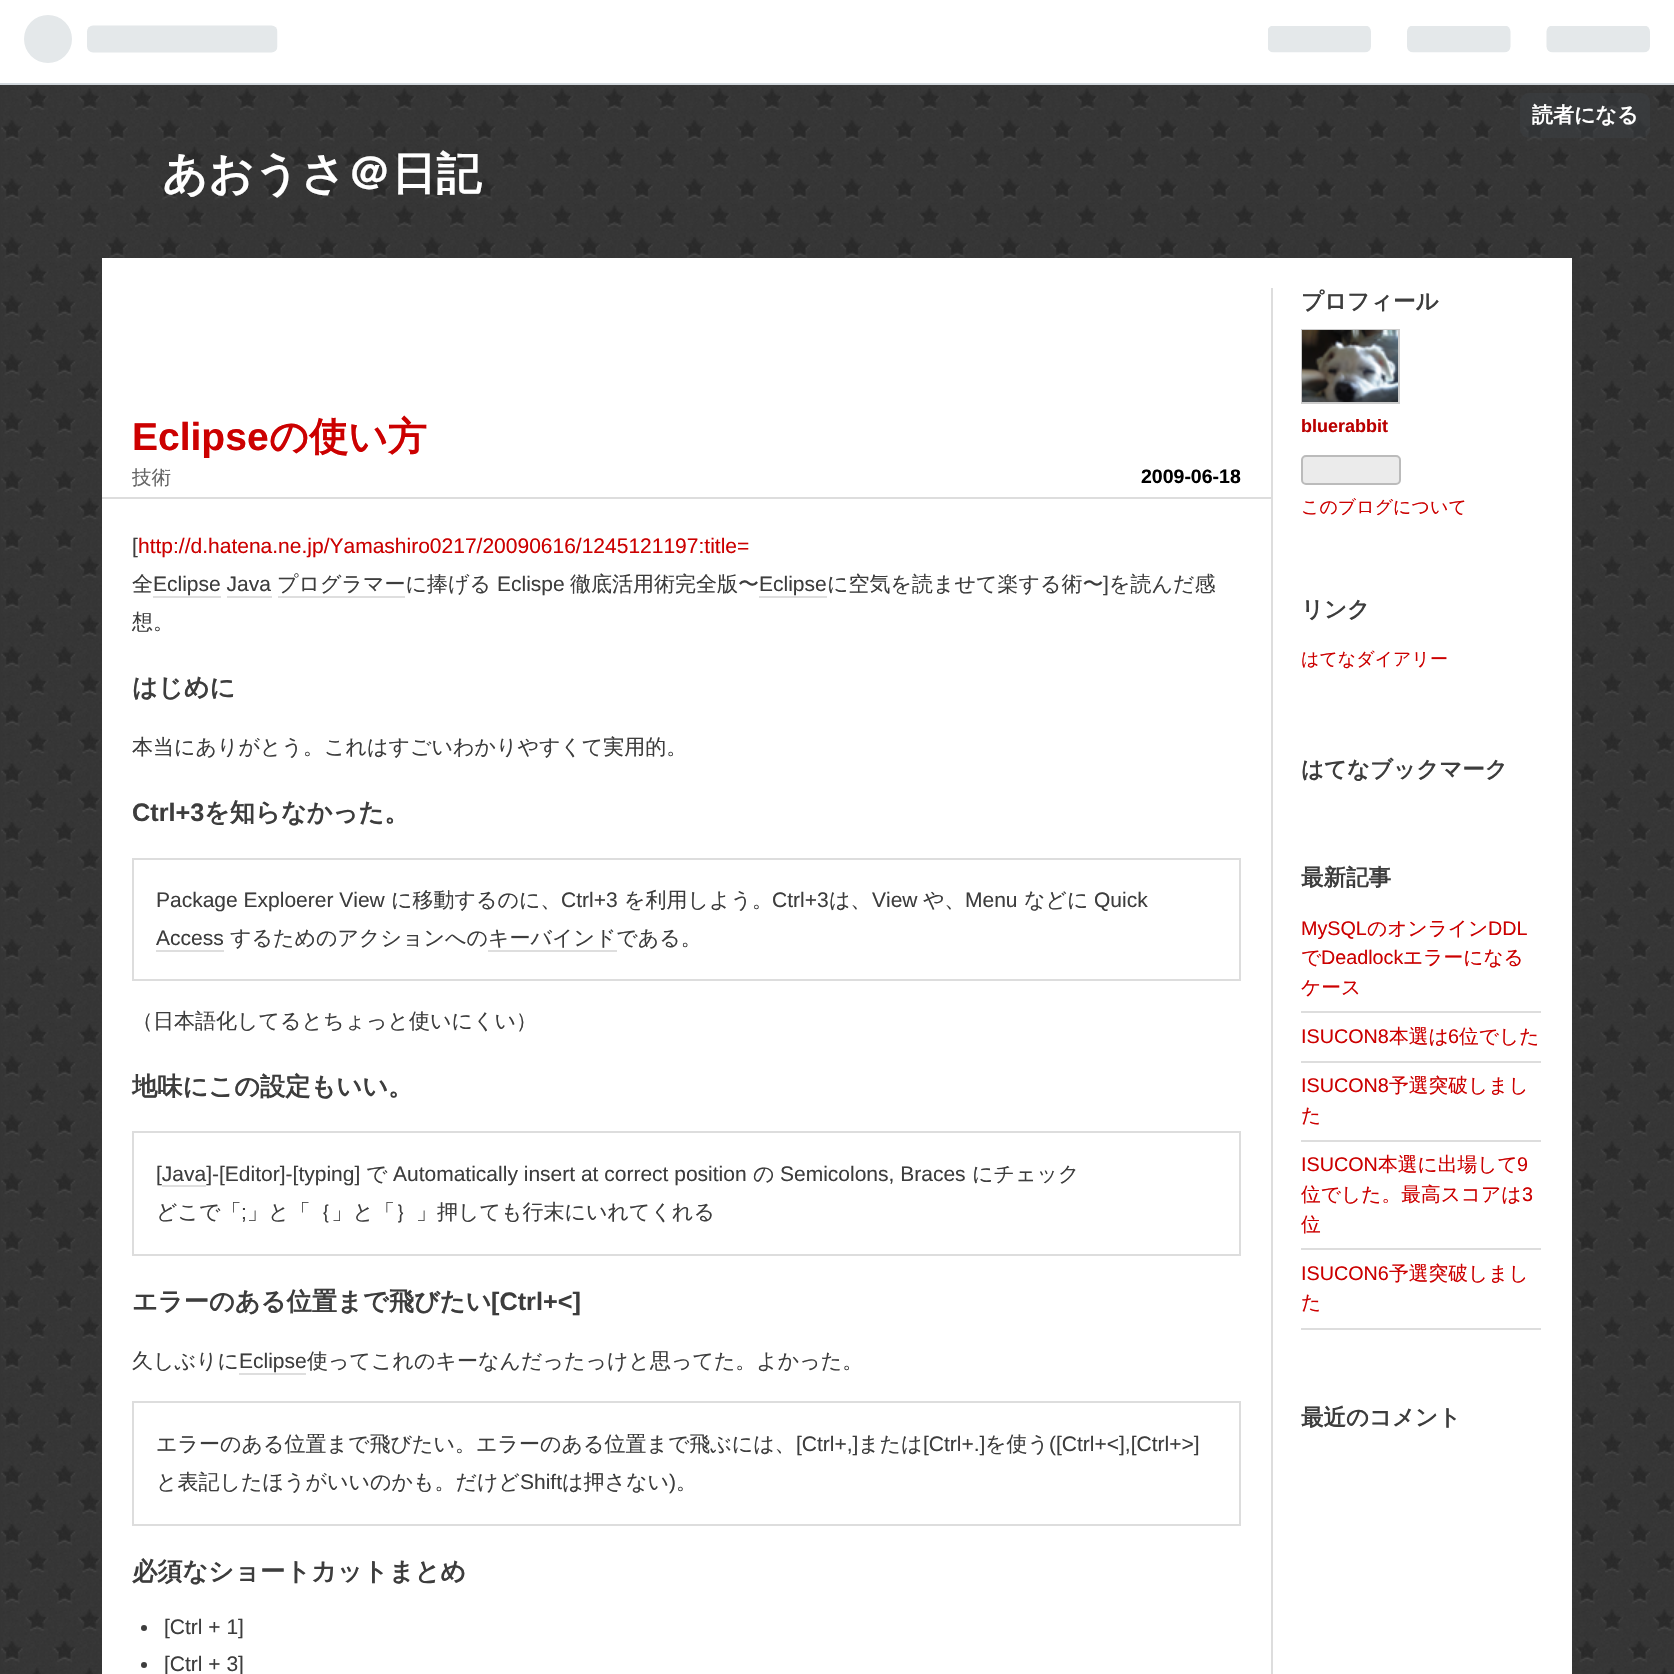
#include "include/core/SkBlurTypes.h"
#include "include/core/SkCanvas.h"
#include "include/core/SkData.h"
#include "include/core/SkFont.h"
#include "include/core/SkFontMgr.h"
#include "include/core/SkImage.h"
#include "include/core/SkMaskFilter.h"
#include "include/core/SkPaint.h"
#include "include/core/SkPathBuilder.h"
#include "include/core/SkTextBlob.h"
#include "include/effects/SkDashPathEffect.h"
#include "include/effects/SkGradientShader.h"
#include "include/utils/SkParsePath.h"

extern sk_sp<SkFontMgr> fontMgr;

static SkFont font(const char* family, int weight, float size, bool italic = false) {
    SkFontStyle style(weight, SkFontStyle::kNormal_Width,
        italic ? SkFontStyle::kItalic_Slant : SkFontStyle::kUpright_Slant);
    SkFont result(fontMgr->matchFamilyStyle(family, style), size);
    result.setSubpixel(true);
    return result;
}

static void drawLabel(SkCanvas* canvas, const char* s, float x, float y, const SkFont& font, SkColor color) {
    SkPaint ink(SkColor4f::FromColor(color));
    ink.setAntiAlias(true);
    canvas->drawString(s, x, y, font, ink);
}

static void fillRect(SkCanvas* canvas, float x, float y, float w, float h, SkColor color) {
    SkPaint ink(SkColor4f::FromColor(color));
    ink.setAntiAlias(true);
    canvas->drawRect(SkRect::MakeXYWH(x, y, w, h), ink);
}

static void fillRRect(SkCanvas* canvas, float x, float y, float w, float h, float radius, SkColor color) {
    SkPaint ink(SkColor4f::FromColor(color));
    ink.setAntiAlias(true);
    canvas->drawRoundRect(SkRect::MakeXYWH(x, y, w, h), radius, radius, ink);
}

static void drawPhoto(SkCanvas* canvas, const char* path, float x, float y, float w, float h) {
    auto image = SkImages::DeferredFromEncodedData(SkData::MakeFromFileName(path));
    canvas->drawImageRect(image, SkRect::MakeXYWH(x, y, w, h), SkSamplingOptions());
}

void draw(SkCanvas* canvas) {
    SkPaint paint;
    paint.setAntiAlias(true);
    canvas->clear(0xFF353535);
    drawPhoto(canvas, "assets/img1.png", 1, 85, 1673, 1589);
    fillRect(canvas, 0, 0, 1674, 83, 0xFFFFFFFF);
    fillRect(canvas, 0, 83, 1674, 2, 0xFFD2D8DD);
    drawPhoto(canvas, "assets/img2.png", 24, 15, 254, 48);
    drawPhoto(canvas, "assets/img3.png", 1268, 26, 382, 27);
    fillRRect(canvas, 1520, 93, 130, 45, 9, 0x663D4245);
    SkFont font1 = font("WenQuanYi Zen Hei", 700, 21);
    drawLabel(canvas, "読者になる", 1532, 122, font1, 0xFFFFFFFF);
    SkFont font2 = font("WenQuanYi Zen Hei", 700, 45);
    drawLabel(canvas, "あおうさ＠日記", 162, 189, font2, 0xFFFFFFFF);
    fillRect(canvas, 102, 258, 1470, 1416, 0xFFFFFFFF);
    fillRect(canvas, 1271, 288, 2, 1386, 0xFFDDDDDD);
    fillRect(canvas, 102, 497, 1169, 2, 0xFFDDDDDD);
    SkFont font3 = font("Liberation Sans", 700, 39);
    drawLabel(canvas, "Eclipse", 132, 450, font3, 0xFFCC0000);
    SkFont font4 = font("WenQuanYi Zen Hei", 700, 39);
    drawLabel(canvas, "の使い方", 269, 450, font4, 0xFFCC0000);
    SkFont font5 = font("WenQuanYi Zen Hei", 500, 19.5f);
    drawLabel(canvas, "技術", 132, 484, font5, 0xFF666666);
    SkFont font6 = font("Liberation Sans", 700, 19.5f);
    drawLabel(canvas, "2009-06-18", 1141, 483, font6, 0xFF000000);
    SkFont font7 = font("Liberation Sans", 400, 21);
    drawLabel(canvas, "[", 132, 553, font7, 0xFF3D3D3D);
    drawLabel(canvas, "http://d.hatena.ne.jp/Yamashiro0217/20090616/1245121197:title=", 138, 553, font7, 0xFFCC0000);
    SkFont font8 = font("WenQuanYi Zen Hei", 500, 21);
    drawLabel(canvas, "全", 132, 591, font8, 0xFF3D3D3D);
    drawLabel(canvas, "Eclipse Java", 153, 591, font7, 0xFF3D3D3D);
    fillRect(canvas, 153, 596, 68, 2, 0xFFDEDEDE);
    drawLabel(canvas, "プログラマーに捧げる", 277, 591, font8, 0xFF3D3D3D);
    fillRect(canvas, 278, 596, 127, 2, 0xFFDEDEDE);
    drawLabel(canvas, "Eclispe", 497, 591, font7, 0xFF3D3D3D);
    drawLabel(canvas, "徹底活用術完全版〜", 570, 591, font8, 0xFF3D3D3D);
    drawLabel(canvas, "Eclipse", 759, 591, font7, 0xFF3D3D3D);
    fillRect(canvas, 759, 596, 68, 2, 0xFFDEDEDE);
    drawLabel(canvas, "に空気を読ませて楽する術〜", 827, 591, font8, 0xFF3D3D3D);
    drawLabel(canvas, "]", 1103, 591, font7, 0xFF3D3D3D);
    drawLabel(canvas, "を読んだ感", 1109, 591, font8, 0xFF3D3D3D);
    fillRect(canvas, 227, 596, 45, 2, 0xFFDEDEDE);
    drawLabel(canvas, "想。", 132, 629, font8, 0xFF3D3D3D);
    SkFont font9 = font("WenQuanYi Zen Hei", 700, 25.25f);
    drawLabel(canvas, "はじめに", 132, 696, font9, 0xFF3D3D3D);
    drawLabel(canvas, "本当にありがとう。これはすごいわかりやすくて実用的。", 132, 754, font8, 0xFF3D3D3D);
    SkFont font10 = font("Liberation Sans", 700, 25.25f);
    drawLabel(canvas, "Ctrl+3", 132, 821, font10, 0xFF3D3D3D);
    drawLabel(canvas, "を知らなかった。", 204, 821, font9, 0xFF3D3D3D);
    paint.setStroke(true);
    paint.setStrokeWidth(2);
    paint.setColor(0xFFDDDDDD);
    canvas->drawRect(SkRect::MakeXYWH(133, 859, 1107, 121), paint);
    drawLabel(canvas, "Package Exploerer View", 156, 907, font7, 0xFF3D3D3D);
    drawLabel(canvas, "に移動するのに、", 391, 907, font8, 0xFF3D3D3D);
    drawLabel(canvas, "Ctrl+3", 561, 907, font7, 0xFF3D3D3D);
    drawLabel(canvas, "を利用しよう。", 624, 907, font8, 0xFF3D3D3D);
    drawLabel(canvas, "Ctrl+3", 772, 907, font7, 0xFF3D3D3D);
    drawLabel(canvas, "は、", 829, 907, font8, 0xFF3D3D3D);
    drawLabel(canvas, "View", 872, 907, font7, 0xFF3D3D3D);
    drawLabel(canvas, "や、", 923, 907, font8, 0xFF3D3D3D);
    drawLabel(canvas, "Menu", 965, 907, font7, 0xFF3D3D3D);
    drawLabel(canvas, "などに", 1024, 907, font8, 0xFF3D3D3D);
    drawLabel(canvas, "Quick", 1094, 907, font7, 0xFF3D3D3D);
    drawLabel(canvas, "Access", 156, 945, font7, 0xFF3D3D3D);
    fillRect(canvas, 156, 950, 68, 2, 0xFFDEDEDE);
    drawLabel(canvas, "するためのアクションへのキーバインドである。", 230, 945, font8, 0xFF3D3D3D);
    fillRect(canvas, 488, 950, 129, 2, 0xFFDEDEDE);
    drawLabel(canvas, "（日本語化してるとちょっと使いにくい）", 132, 1028, font8, 0xFF3D3D3D);
    drawLabel(canvas, "地味にこの設定もいい。", 132, 1095, font9, 0xFF3D3D3D);
    canvas->drawRect(SkRect::MakeXYWH(133, 1132, 1107, 123), paint);
    drawLabel(canvas, "[Java]-[Editor]-[typing]", 156, 1181, font7, 0xFF3D3D3D);
    drawLabel(canvas, "で", 366, 1181, font8, 0xFF3D3D3D);
    drawLabel(canvas, "Automatically insert at correct position", 393, 1181, font7, 0xFF3D3D3D);
    drawLabel(canvas, "の", 753, 1181, font8, 0xFF3D3D3D);
    drawLabel(canvas, "Semicolons, Braces", 780, 1181, font7, 0xFF3D3D3D);
    drawLabel(canvas, "にチェック", 972, 1181, font8, 0xFF3D3D3D);
    fillRect(canvas, 162, 1185, 44, 2, 0xFFDEDEDE);
    drawLabel(canvas, "どこで「", 156, 1219, font8, 0xFF3D3D3D);
    drawLabel(canvas, ";", 241, 1219, font7, 0xFF3D3D3D);
    drawLabel(canvas, "」と「｛」と「｝」押しても行末にいれてくれる", 247, 1219, font8, 0xFF3D3D3D);
    drawLabel(canvas, "エラーのある位置まで飛びたい", 132, 1310, font9, 0xFF3D3D3D);
    drawLabel(canvas, "[Ctrl+<]", 491, 1310, font10, 0xFF3D3D3D);
    drawLabel(canvas, "久しぶりに", 132, 1368, font8, 0xFF3D3D3D);
    drawLabel(canvas, "Eclipse", 239, 1368, font7, 0xFF3D3D3D);
    fillRect(canvas, 239, 1373, 67, 2, 0xFFDEDEDE);
    drawLabel(canvas, "使ってこれのキーなんだったっけと思ってた。よかった。", 307, 1368, font8, 0xFF3D3D3D);
    canvas->drawRect(SkRect::MakeXYWH(133, 1402, 1107, 123), paint);
    drawLabel(canvas, "エラーのある位置まで飛びたい。エラーのある位置まで飛ぶには、", 156, 1451, font8, 0xFF3D3D3D);
    drawLabel(canvas, "[Ctrl+,]", 796, 1451, font7, 0xFF3D3D3D);
    drawLabel(canvas, "または", 858, 1451, font8, 0xFF3D3D3D);
    drawLabel(canvas, "[Ctrl+.]", 923, 1451, font7, 0xFF3D3D3D);
    drawLabel(canvas, "を使う", 985, 1451, font8, 0xFF3D3D3D);
    drawLabel(canvas, "([Ctrl+<],[Ctrl+>]", 1049, 1451, font7, 0xFF3D3D3D);
    drawLabel(canvas, "と表記したほうがいいのかも。だけど", 156, 1489, font8, 0xFF3D3D3D);
    drawLabel(canvas, "Shift", 520, 1489, font7, 0xFF3D3D3D);
    drawLabel(canvas, "は押さない", 562, 1489, font8, 0xFF3D3D3D);
    drawLabel(canvas, ")", 669, 1489, font7, 0xFF3D3D3D);
    drawLabel(canvas, "。", 676, 1489, font8, 0xFF3D3D3D);
    drawLabel(canvas, "必須なショートカットまとめ", 132, 1580, font9, 0xFF3D3D3D);
    paint.setStroke(false);
    paint.setColor(0xFF3D3D3D);
    canvas->drawCircle(144, 1628, 3, paint);
    drawLabel(canvas, "[Ctrl + 1]", 164, 1634, font7, 0xFF3D3D3D);
    canvas->drawCircle(144, 1665, 3, paint);
    drawLabel(canvas, "[Ctrl + 3]", 164, 1671, font7, 0xFF3D3D3D);
    SkFont font11 = font("WenQuanYi Zen Hei", 700, 22.5f);
    drawLabel(canvas, "プロフィール", 1301, 309, font11, 0xFF3D3D3D);
    paint.setStroke(true);
    paint.setColor(0xFFCCCCCC);
    canvas->drawRect(SkRect::MakeXYWH(1302, 330, 97, 73), paint);
    drawPhoto(canvas, "assets/img4.png", 1302, 330, 96, 72);
    SkFont font12 = font("Liberation Sans", 700, 18);
    drawLabel(canvas, "bluerabbit", 1301, 432, font12, 0xFFBA0000);
    paint.setStroke(false);
    paint.setColor(0xFFEBEBEB);
    canvas->drawRoundRect(SkRect::MakeXYWH(1302, 456, 98, 28), 4, 4, paint);
    paint.setStroke(true);
    paint.setColor(0xFFBBBBBB);
    canvas->drawRoundRect(SkRect::MakeXYWH(1302, 456, 98, 28), 4, 4, paint);
    SkFont font13 = font("WenQuanYi Zen Hei", 500, 18);
    drawLabel(canvas, "このブログについて", 1301, 513, font13, 0xFFCC0000);
    drawLabel(canvas, "リンク", 1301, 617, font11, 0xFF3D3D3D);
    drawLabel(canvas, "はてなダイアリー", 1301, 665, font13, 0xFFCC0000);
    drawLabel(canvas, "はてなブックマーク", 1301, 777, font11, 0xFF3D3D3D);
    drawLabel(canvas, "最新記事", 1301, 885, font11, 0xFF3D3D3D);
    fillRect(canvas, 1301, 1011, 240, 2, 0xFFDDDDDD);
    SkFont font14 = font("Liberation Sans", 400, 19.75f);
    drawLabel(canvas, "MySQL", 1301, 935, font14, 0xFFCC0000);
    SkFont font15 = font("WenQuanYi Zen Hei", 500, 19.75f);
    drawLabel(canvas, "のオンライン", 1367, 935, font15, 0xFFCC0000);
    drawLabel(canvas, "DDL", 1488, 935, font14, 0xFFCC0000);
    drawLabel(canvas, "で", 1301, 964, font15, 0xFFCC0000);
    drawLabel(canvas, "Deadlock", 1321, 964, font14, 0xFFCC0000);
    drawLabel(canvas, "エラーになる", 1403, 964, font15, 0xFFCC0000);
    drawLabel(canvas, "ケース", 1301, 994, font15, 0xFFCC0000);
    fillRect(canvas, 1301, 1061, 240, 2, 0xFFDDDDDD);
    drawLabel(canvas, "ISUCON8", 1301, 1043, font14, 0xFFCC0000);
    drawLabel(canvas, "本選は", 1389, 1043, font15, 0xFFCC0000);
    drawLabel(canvas, "6", 1448, 1043, font14, 0xFFCC0000);
    drawLabel(canvas, "位でした", 1459, 1043, font15, 0xFFCC0000);
    fillRect(canvas, 1301, 1140, 240, 2, 0xFFDDDDDD);
    drawLabel(canvas, "ISUCON8", 1301, 1092, font14, 0xFFCC0000);
    drawLabel(canvas, "予選突破しまし", 1389, 1092, font15, 0xFFCC0000);
    drawLabel(canvas, "た", 1301, 1122, font15, 0xFFCC0000);
    fillRect(canvas, 1301, 1248, 240, 2, 0xFFDDDDDD);
    drawLabel(canvas, "ISUCON", 1301, 1171, font14, 0xFFCC0000);
    drawLabel(canvas, "本選に出場して", 1378, 1171, font15, 0xFFCC0000);
    drawLabel(canvas, "9", 1517, 1171, font14, 0xFFCC0000);
    drawLabel(canvas, "位でした。最高スコアは", 1301, 1201, font15, 0xFFCC0000);
    drawLabel(canvas, "3", 1522, 1201, font14, 0xFFCC0000);
    drawLabel(canvas, "位", 1301, 1231, font15, 0xFFCC0000);
    fillRect(canvas, 1301, 1328, 240, 2, 0xFFDDDDDD);
    drawLabel(canvas, "ISUCON6", 1301, 1280, font14, 0xFFCC0000);
    drawLabel(canvas, "予選突破しまし", 1389, 1280, font15, 0xFFCC0000);
    drawLabel(canvas, "た", 1301, 1309, font15, 0xFFCC0000);
    drawLabel(canvas, "最近のコメント", 1301, 1425, font11, 0xFF3D3D3D);
}
